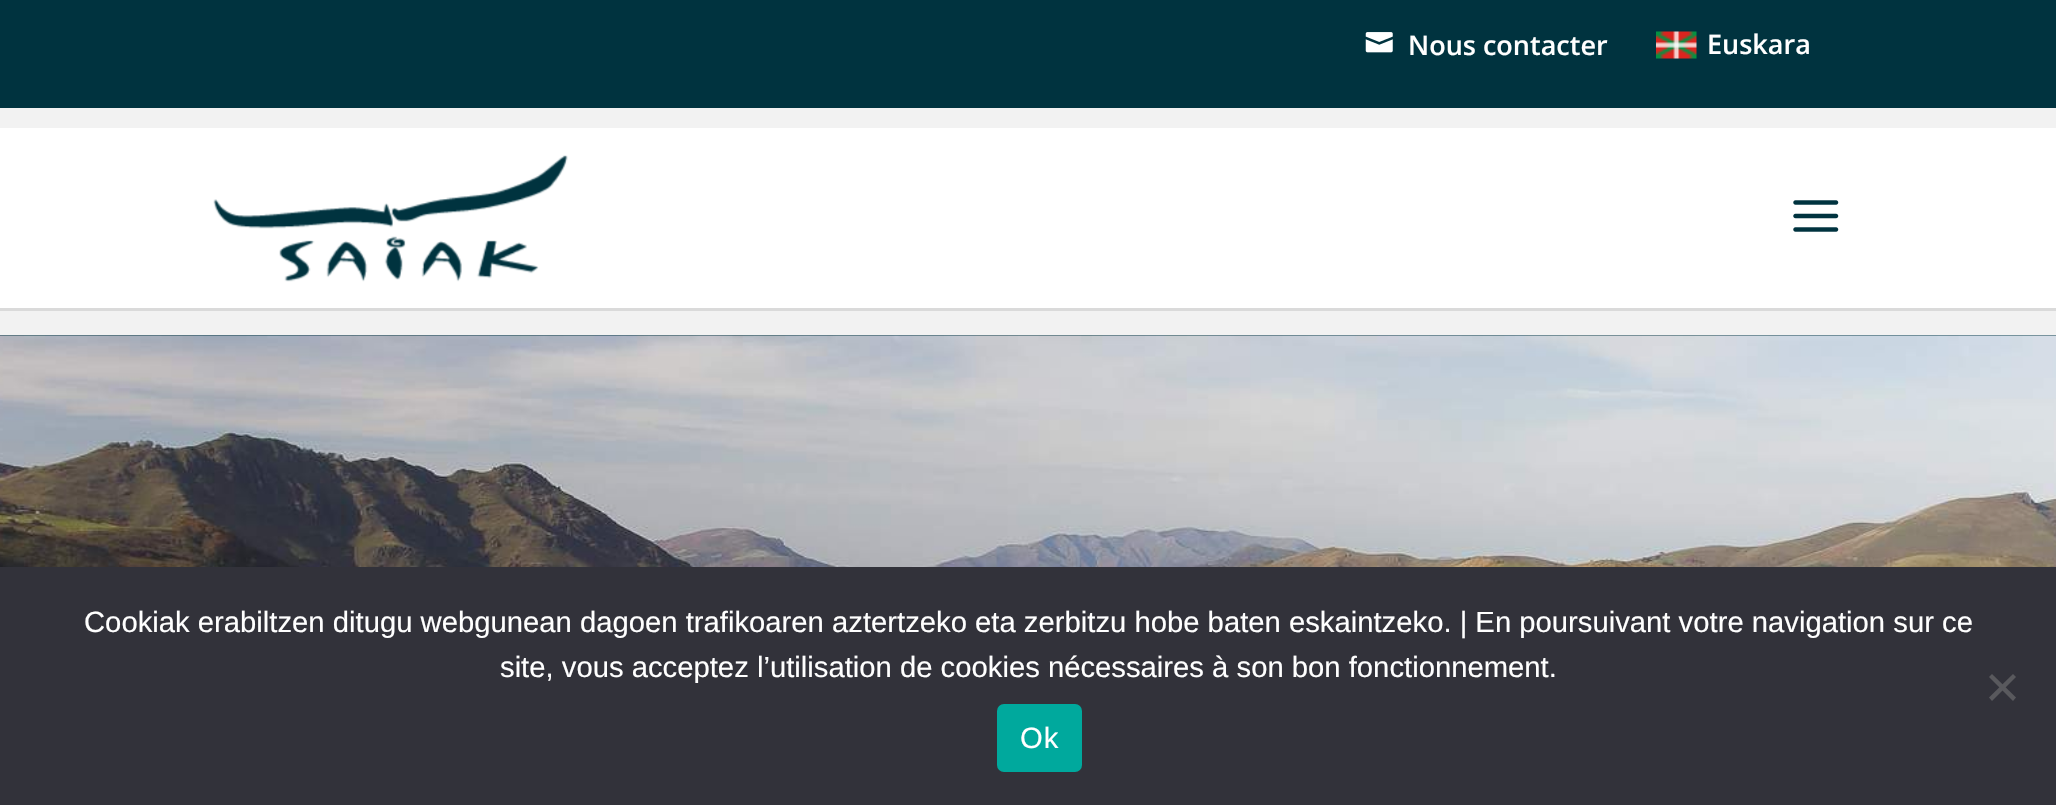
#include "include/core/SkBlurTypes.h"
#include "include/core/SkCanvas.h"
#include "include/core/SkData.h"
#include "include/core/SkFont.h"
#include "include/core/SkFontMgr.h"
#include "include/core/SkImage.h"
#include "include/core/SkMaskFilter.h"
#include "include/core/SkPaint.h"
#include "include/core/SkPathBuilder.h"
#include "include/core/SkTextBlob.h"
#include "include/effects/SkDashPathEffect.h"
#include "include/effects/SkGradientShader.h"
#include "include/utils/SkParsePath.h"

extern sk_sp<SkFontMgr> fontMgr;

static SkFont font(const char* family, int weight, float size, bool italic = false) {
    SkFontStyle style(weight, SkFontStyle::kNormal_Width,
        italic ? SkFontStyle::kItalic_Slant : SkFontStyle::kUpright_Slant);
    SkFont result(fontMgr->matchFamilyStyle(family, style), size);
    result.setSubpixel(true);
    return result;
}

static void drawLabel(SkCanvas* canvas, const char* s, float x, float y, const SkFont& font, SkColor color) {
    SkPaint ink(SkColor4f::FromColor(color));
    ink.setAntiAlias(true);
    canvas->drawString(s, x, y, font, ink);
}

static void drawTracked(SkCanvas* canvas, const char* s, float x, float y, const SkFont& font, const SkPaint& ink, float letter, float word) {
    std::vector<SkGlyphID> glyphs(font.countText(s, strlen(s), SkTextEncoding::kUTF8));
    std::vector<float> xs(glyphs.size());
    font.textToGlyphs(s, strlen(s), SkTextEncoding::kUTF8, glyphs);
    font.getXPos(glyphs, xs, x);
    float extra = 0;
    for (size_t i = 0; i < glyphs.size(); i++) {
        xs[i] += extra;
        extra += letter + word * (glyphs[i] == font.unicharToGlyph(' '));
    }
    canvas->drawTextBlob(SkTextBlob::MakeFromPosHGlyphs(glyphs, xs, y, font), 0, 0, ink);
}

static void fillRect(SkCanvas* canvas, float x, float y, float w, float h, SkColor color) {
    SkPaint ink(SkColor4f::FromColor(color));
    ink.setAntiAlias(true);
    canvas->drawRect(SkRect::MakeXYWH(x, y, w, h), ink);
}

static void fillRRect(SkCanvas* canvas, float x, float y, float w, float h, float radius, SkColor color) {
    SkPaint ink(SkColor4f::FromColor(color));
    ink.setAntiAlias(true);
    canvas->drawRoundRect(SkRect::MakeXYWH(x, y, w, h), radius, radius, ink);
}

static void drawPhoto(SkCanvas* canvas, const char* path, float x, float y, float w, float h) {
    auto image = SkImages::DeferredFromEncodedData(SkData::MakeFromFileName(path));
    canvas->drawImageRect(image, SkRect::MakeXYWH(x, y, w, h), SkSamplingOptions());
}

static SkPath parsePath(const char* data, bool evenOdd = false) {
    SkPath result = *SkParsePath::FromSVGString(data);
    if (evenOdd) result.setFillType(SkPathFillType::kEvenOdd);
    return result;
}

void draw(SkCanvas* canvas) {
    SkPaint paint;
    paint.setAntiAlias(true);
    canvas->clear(0xFFF2F2F2);
    fillRect(canvas, 0, 0, 2056, 108, 0xFF00333F);
    drawPhoto(canvas, "assets/img1.png", 1365, 32, 28, 21);
    SkFont font1 = font("Open Sans", 600, 27);
    drawLabel(canvas, "Nous contacter", 1408, 55, font1, 0xFFFFFFFF);
    drawPhoto(canvas, "assets/img2.png", 1656, 31, 41, 28);
    drawLabel(canvas, "Euskara", 1707, 54, font1, 0xFFFFFFFF);
    paint.setColor(0xFFDADADA);
    canvas->drawPath(parsePath("M0 308V311H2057V131H2056V308Z"), paint);
    fillRect(canvas, 0, 128, 2056, 180, 0xFFFFFFFF);
    drawPhoto(canvas, "assets/img3.png", 213, 155, 355, 127);
    drawPhoto(canvas, "assets/img4.png", 1793, 200, 46, 32);
    fillRect(canvas, 0, 335, 2056, 1, 0xFF00333F);
    drawPhoto(canvas, "assets/img5.png", 0, 335, 2056, 232);
    fillRect(canvas, 0, 567, 2056, 238, 0xFF32323A);
    SkFont font2 = font("Liberation Sans", 400, 29.25f);
    drawLabel(canvas, "Cookiak erabiltzen ditugu webgunean dagoen trafikoaren aztertzeko eta zerbitzu hobe baten eskaintzeko. | En poursuivant votre navigation sur ce", 84, 632, font2, 0xFFFFFFFF);
    drawLabel(canvas, "site, vous acceptez l’utilisation de cookies nécessaires à son bon fonctionnement.", 500, 677, font2, 0xFFFFFFFF);
    paint.setColor(0xFF59595D);
    canvas->drawPath(parsePath("M2013 674L2016 677L1992 701L1989 697.5Z"), paint);
    canvas->drawPath(parsePath("M1989 677L1992 674L2016 697.5L2013 701Z"), paint);
    fillRRect(canvas, 997, 704, 85, 68, 7, 0xFF00A99D);
    paint.setColor(0xFFFFFFFF);
    drawTracked(canvas, "Ok", 1020, 748, font2, paint, 1, 0);
}
